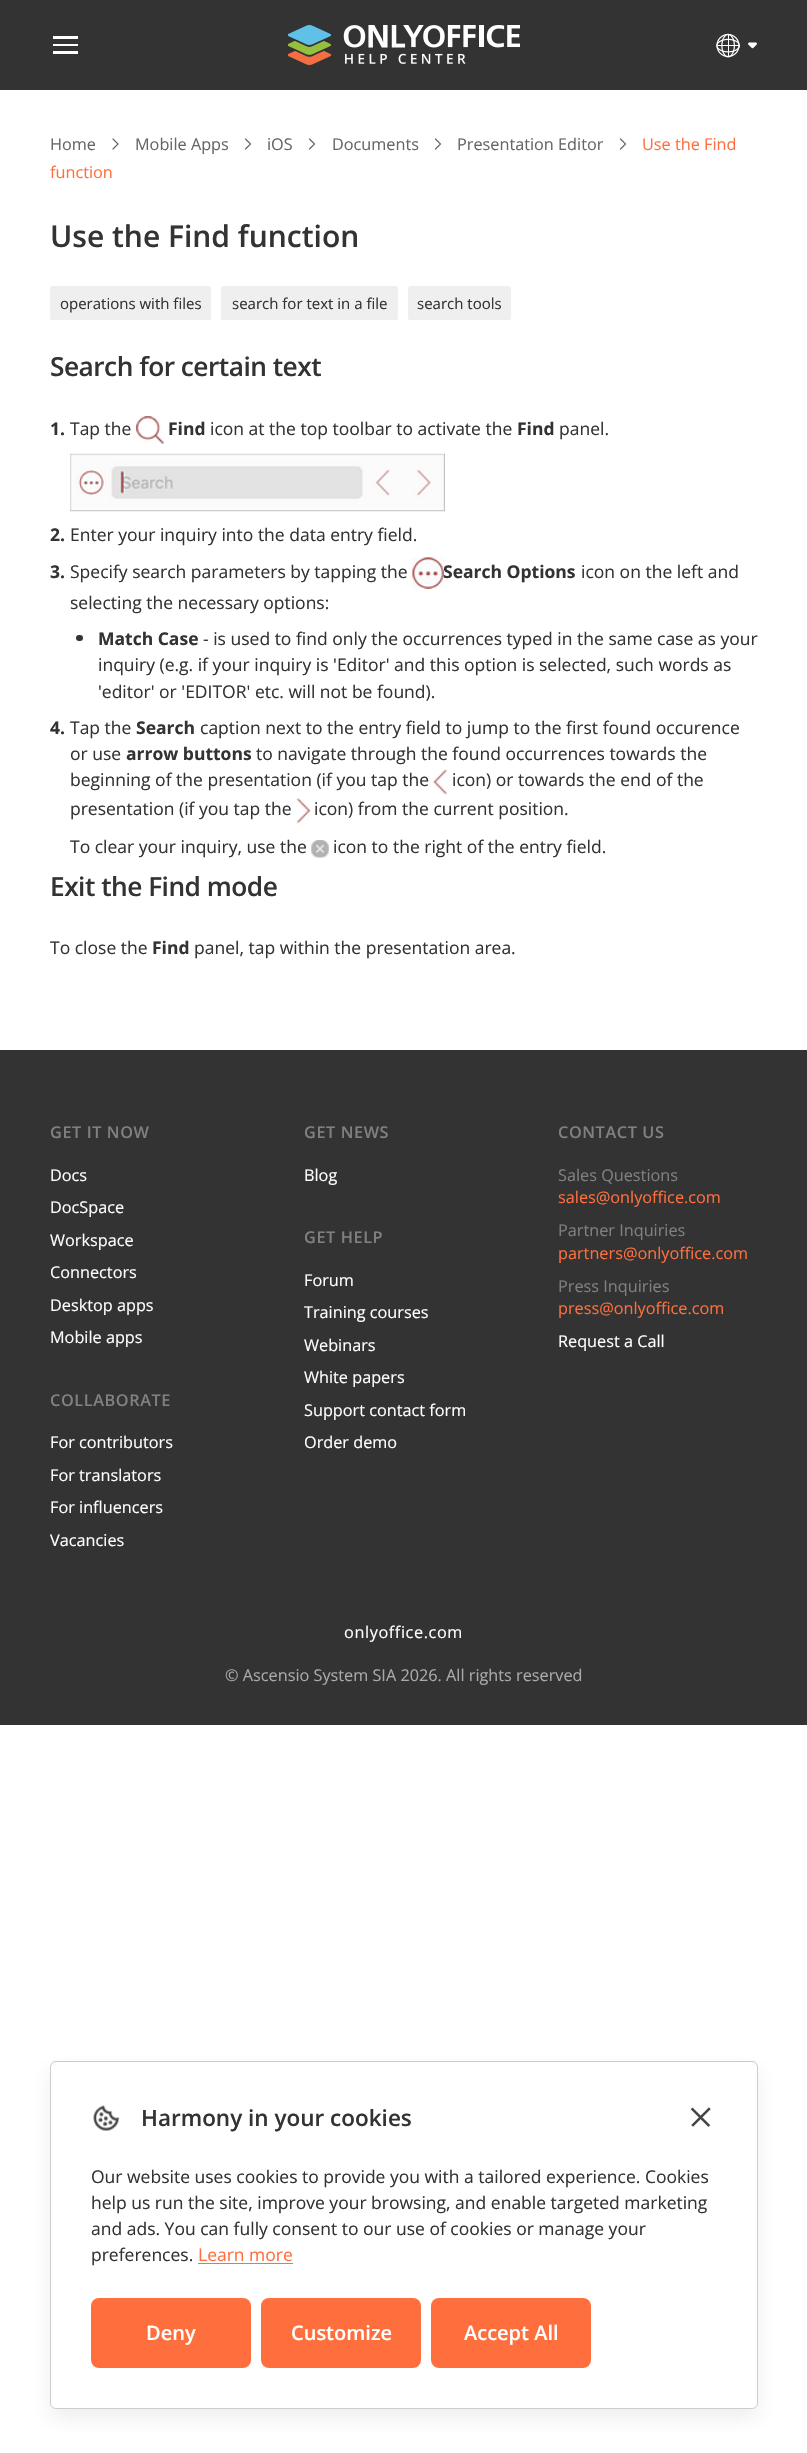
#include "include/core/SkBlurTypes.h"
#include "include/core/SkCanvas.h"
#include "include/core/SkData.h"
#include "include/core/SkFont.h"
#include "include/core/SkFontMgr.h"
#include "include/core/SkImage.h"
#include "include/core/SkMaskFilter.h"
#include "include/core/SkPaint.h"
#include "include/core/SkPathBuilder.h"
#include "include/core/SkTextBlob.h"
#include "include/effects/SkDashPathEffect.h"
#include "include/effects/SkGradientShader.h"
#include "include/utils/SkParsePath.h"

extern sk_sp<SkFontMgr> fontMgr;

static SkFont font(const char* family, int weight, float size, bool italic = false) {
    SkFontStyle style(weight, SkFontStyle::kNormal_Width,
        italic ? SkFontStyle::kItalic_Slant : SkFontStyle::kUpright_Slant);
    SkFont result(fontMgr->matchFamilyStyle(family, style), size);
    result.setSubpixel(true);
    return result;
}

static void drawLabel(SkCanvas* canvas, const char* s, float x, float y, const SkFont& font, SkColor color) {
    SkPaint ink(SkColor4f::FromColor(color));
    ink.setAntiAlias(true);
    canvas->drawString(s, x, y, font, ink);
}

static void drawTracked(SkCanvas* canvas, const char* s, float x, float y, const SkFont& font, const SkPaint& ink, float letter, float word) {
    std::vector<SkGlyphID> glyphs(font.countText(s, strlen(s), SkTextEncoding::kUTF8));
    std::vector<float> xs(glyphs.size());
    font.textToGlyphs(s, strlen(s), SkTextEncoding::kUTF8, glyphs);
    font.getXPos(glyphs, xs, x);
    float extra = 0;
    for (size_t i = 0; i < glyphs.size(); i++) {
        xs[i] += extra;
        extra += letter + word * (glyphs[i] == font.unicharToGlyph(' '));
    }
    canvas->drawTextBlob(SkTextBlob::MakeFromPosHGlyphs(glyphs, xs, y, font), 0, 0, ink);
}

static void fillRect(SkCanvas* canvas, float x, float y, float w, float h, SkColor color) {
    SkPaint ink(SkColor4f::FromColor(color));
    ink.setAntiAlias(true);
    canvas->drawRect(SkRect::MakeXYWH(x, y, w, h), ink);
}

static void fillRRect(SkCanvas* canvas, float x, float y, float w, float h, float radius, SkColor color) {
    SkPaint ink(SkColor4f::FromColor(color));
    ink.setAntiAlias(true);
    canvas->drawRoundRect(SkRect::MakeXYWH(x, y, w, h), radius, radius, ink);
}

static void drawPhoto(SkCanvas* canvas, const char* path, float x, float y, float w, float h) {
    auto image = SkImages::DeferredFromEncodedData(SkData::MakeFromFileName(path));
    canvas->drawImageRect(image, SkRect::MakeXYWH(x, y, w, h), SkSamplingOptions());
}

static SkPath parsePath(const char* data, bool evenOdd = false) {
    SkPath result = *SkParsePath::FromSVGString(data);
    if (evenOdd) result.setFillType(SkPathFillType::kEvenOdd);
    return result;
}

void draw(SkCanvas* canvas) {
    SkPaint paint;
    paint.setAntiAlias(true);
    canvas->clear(0xFFFFFFFF);
    fillRect(canvas, 0, 0, 807, 90, 0xFF333333);
    fillRect(canvas, 53, 36, 25, 3, 0xFFFFFFFF);
    fillRect(canvas, 53, 44, 25, 2, 0xFFFFFFFF);
    fillRect(canvas, 53, 51, 25, 3, 0xFFFFFFFF);
    drawPhoto(canvas, "assets/img1.png", 288, 25, 232, 40);
    drawPhoto(canvas, "assets/img2.png", 716, 33, 24, 25);
    drawPhoto(canvas, "assets/img3.png", 748, 42, 9, 7);
    SkFont font1 = font("Open Sans", 400, 16.25f);
    drawLabel(canvas, "Home", 50, 150, font1, 0xFF666666);
    paint.setStroke(true);
    paint.setStrokeWidth(1.2f);
    paint.setStrokeCap(SkPaint::kRound_Cap);
    paint.setColor(0xFF666666);
    canvas->drawPath(parsePath("M113 149L118 144L113 139"), paint);
    drawLabel(canvas, "Mobile Apps", 135, 150, font1, 0xFF666666);
    canvas->drawPath(parsePath("M245.5 149L250.5 144L245.5 139"), paint);
    drawLabel(canvas, "iOS", 267, 150, font1, 0xFF666666);
    canvas->drawPath(parsePath("M309.5 149L314.5 144L309.5 139"), paint);
    drawLabel(canvas, "Documents", 332, 150, font1, 0xFF666666);
    canvas->drawPath(parsePath("M435.5 149L440.5 144L435.5 139"), paint);
    drawLabel(canvas, "Presentation Editor", 457, 150, font1, 0xFF666666);
    canvas->drawPath(parsePath("M620.5 149L625.5 144L620.5 139"), paint);
    drawLabel(canvas, "Use the Find", 642, 150, font1, 0xFFFF6F3D);
    drawLabel(canvas, "function", 50, 178, font1, 0xFFFF6F3D);
    SkFont font2 = font("Open Sans", 600, 30);
    drawLabel(canvas, "Use the Find function", 50, 247, font2, 0xFF333333);
    fillRRect(canvas, 50, 286, 161, 34, 2.5f, 0xFFEFEFEF);
    SkFont font3 = font("Open Sans", 400, 15);
    drawLabel(canvas, "operations with files", 60, 309, font3, 0xFF333333);
    fillRRect(canvas, 221, 286, 177, 34, 2.5f, 0xFFEFEFEF);
    drawLabel(canvas, "search for text in a file", 232, 309, font3, 0xFF333333);
    fillRRect(canvas, 408, 286, 103, 34, 2.5f, 0xFFEFEFEF);
    drawLabel(canvas, "search tools", 417, 309, font3, 0xFF333333);
    SkFont font4 = font("Open Sans", 600, 26.25f);
    paint.setStroke(false);
    paint.setColor(0xFF333333);
    drawTracked(canvas, "Search for certain text", 50, 376, font4, paint, -0.5f, 0);
    SkFont font5 = font("Open Sans", 700, 17.5f);
    drawLabel(canvas, "1.", 50, 435, font5, 0xFF333333);
    SkFont font6 = font("Open Sans", 400, 17.5f);
    drawLabel(canvas, "Tap the", 70, 435, font6, 0xFF333333);
    drawPhoto(canvas, "assets/img4.png", 136, 416, 28, 28);
    drawLabel(canvas, "Find", 168, 435, font5, 0xFF333333);
    drawLabel(canvas, "icon at the top toolbar to activate the", 210, 435, font6, 0xFF333333);
    drawLabel(canvas, "Find", 517, 435, font5, 0xFF333333);
    drawLabel(canvas, "panel.", 559, 435, font6, 0xFF333333);
    drawPhoto(canvas, "assets/img5.png", 70, 453, 375, 59);
    drawLabel(canvas, "2.", 50, 541, font5, 0xFF333333);
    drawLabel(canvas, "Enter your inquiry into the data entry field.", 70, 541, font6, 0xFF333333);
    drawLabel(canvas, "3.", 50, 578, font5, 0xFF333333);
    drawLabel(canvas, "Specify search parameters by tapping the", 70, 578, font6, 0xFF333333);
    drawPhoto(canvas, "assets/img6.png", 412, 557, 32, 32);
    drawLabel(canvas, "Search Options", 443, 578, font5, 0xFF333333);
    drawLabel(canvas, "icon on the left and", 581, 578, font6, 0xFF333333);
    drawLabel(canvas, "selecting the necessary options:", 70, 609, font6, 0xFF333333);
    fillRRect(canvas, 76, 635, 7, 6, 3, 0xFF333333);
    drawLabel(canvas, "Match Case", 98, 645, font5, 0xFF333333);
    drawLabel(canvas, "- is used to find only the occurrences typed in the same case as your", 203, 645, font6, 0xFF333333);
    drawLabel(canvas, "inquiry (e.g. if your inquiry is 'Editor' and this option is selected, such words as", 98, 671, font6, 0xFF333333);
    drawLabel(canvas, "'editor' or 'EDITOR' etc. will not be found).", 98, 698, font6, 0xFF333333);
    drawLabel(canvas, "4.", 50, 734, font5, 0xFF333333);
    drawLabel(canvas, "Tap the", 70, 734, font6, 0xFF333333);
    drawLabel(canvas, "Search", 136, 734, font5, 0xFF333333);
    drawLabel(canvas, "caption next to the entry field to jump to the first found occurence", 200, 734, font6, 0xFF333333);
    drawLabel(canvas, "or use", 70, 760, font6, 0xFF333333);
    drawLabel(canvas, "arrow buttons", 126, 760, font5, 0xFF333333);
    drawLabel(canvas, "to navigate through the found occurrences towards the", 256, 760, font6, 0xFF333333);
    drawLabel(canvas, "beginning of the presentation (if you tap the", 70, 786, font6, 0xFF333333);
    drawPhoto(canvas, "assets/img7.png", 433, 769, 15, 26);
    drawLabel(canvas, "icon) or towards the end of the", 452, 786, font6, 0xFF333333);
    drawLabel(canvas, "presentation (if you tap the", 70, 815, font6, 0xFF333333);
    drawPhoto(canvas, "assets/img8.png", 296, 797, 14, 27);
    drawLabel(canvas, "icon) from the current position.", 314, 815, font6, 0xFF333333);
    drawLabel(canvas, "To clear your inquiry, use the", 70, 853, font6, 0xFF333333);
    drawPhoto(canvas, "assets/img9.png", 311, 840, 18, 18);
    drawLabel(canvas, "icon to the right of the entry field.", 333, 853, font6, 0xFF333333);
    drawTracked(canvas, "Exit the Find mode", 50, 896, font4, paint, -0.5f, 0);
    drawLabel(canvas, "To close the", 50, 954, font6, 0xFF333333);
    drawLabel(canvas, "Find", 152, 954, font5, 0xFF333333);
    drawLabel(canvas, "panel, tap within the presentation area.", 194, 954, font6, 0xFF333333);
    fillRect(canvas, 0, 1050, 807, 675, 0xFF333333);
    SkFont font7 = font("Open Sans", 600, 16.25f);
    paint.setColor(0xFF808080);
    drawTracked(canvas, "GET IT NOW", 50, 1138, font7, paint, 0.6f, 0);
    drawLabel(canvas, "Docs", 50, 1181, font1, 0xFFFFFFFF);
    drawLabel(canvas, "DocSpace", 50, 1213, font1, 0xFFFFFFFF);
    drawLabel(canvas, "Workspace", 50, 1246, font1, 0xFFFFFFFF);
    drawLabel(canvas, "Connectors", 50, 1278, font1, 0xFFFFFFFF);
    drawLabel(canvas, "Desktop apps", 50, 1311, font1, 0xFFFFFFFF);
    drawLabel(canvas, "Mobile apps", 50, 1343, font1, 0xFFFFFFFF);
    drawTracked(canvas, "COLLABORATE", 50, 1406, font7, paint, 0.6f, 0);
    drawLabel(canvas, "For contributors", 50, 1448, font1, 0xFFFFFFFF);
    drawLabel(canvas, "For translators", 50, 1481, font1, 0xFFFFFFFF);
    drawLabel(canvas, "For influencers", 50, 1513, font1, 0xFFFFFFFF);
    drawLabel(canvas, "Vacancies", 50, 1546, font1, 0xFFFFFFFF);
    drawTracked(canvas, "GET NEWS", 304, 1138, font7, paint, 0.6f, 0);
    drawLabel(canvas, "Blog", 304, 1181, font1, 0xFFFFFFFF);
    drawTracked(canvas, "GET HELP", 304, 1243, font7, paint, 0.6f, 0);
    drawLabel(canvas, "Forum", 304, 1286, font1, 0xFFFFFFFF);
    drawLabel(canvas, "Training courses", 304, 1318, font1, 0xFFFFFFFF);
    drawLabel(canvas, "Webinars", 304, 1351, font1, 0xFFFFFFFF);
    drawLabel(canvas, "White papers", 304, 1383, font1, 0xFFFFFFFF);
    drawLabel(canvas, "Support contact form", 304, 1416, font1, 0xFFFFFFFF);
    drawLabel(canvas, "Order demo", 304, 1448, font1, 0xFFFFFFFF);
    drawTracked(canvas, "CONTACT US", 558, 1138, font7, paint, 0.6f, 0);
    drawLabel(canvas, "Sales Questions", 558, 1181, font1, 0xFF808080);
    drawLabel(canvas, "sales@onlyoffice.com", 558, 1203, font1, 0xFFFF6F3D);
    drawLabel(canvas, "Partner Inquiries", 558, 1236, font1, 0xFF808080);
    drawLabel(canvas, "partners@onlyoffice.com", 558, 1259, font1, 0xFFFF6F3D);
    drawLabel(canvas, "Press Inquiries", 558, 1292, font1, 0xFF808080);
    drawLabel(canvas, "press@onlyoffice.com", 558, 1314, font1, 0xFFFF6F3D);
    drawLabel(canvas, "Request a Call", 558, 1347, font1, 0xFFFFFFFF);
    paint.setColor(0xFFFFFFFF);
    drawTracked(canvas, "onlyoffice.com", 344, 1638, font1, paint, 0.6f, 0);
    drawLabel(canvas, "© Ascensio System SIA 2026. All rights reserved", 225, 1681, font1, 0xFFAAAAAA);
    paint.setColor(0x1A555555);
    paint.setMaskFilter(SkMaskFilter::MakeBlur(kNormal_SkBlurStyle, 9.5f));
    canvas->drawRoundRect(SkRect::MakeXYWH(50, 2070, 708, 348), 6, 6, paint);
    paint.setMaskFilter(nullptr);
    paint.setColor(0xFFFFFFFF);
    canvas->drawRoundRect(SkRect::MakeXYWH(50.5f, 2061.5f, 707, 347), 5.5f, 5.5f, paint);
    paint.setStroke(true);
    paint.setStrokeWidth(1);
    paint.setStrokeCap(SkPaint::kButt_Cap);
    paint.setColor(0xFFCCCCCC);
    canvas->drawRoundRect(SkRect::MakeXYWH(50.5f, 2061.5f, 707, 347), 5.5f, 5.5f, paint);
    drawPhoto(canvas, "assets/img10.png", 93, 2105, 27, 26);
    SkFont font8 = font("Open Sans", 600, 22.5f);
    drawLabel(canvas, "Harmony in your cookies", 141, 2126, font8, 0xFF333333);
    drawPhoto(canvas, "assets/img11.png", 690, 2107, 21, 20);
    drawLabel(canvas, "Our website uses cookies to provide you with a tailored experience. Cookies", 91, 2183, font6, 0xFF333333);
    drawLabel(canvas, "help us run the site, improve your browsing, and enable targeted marketing", 91, 2209, font6, 0xFF333333);
    drawLabel(canvas, "and ads. You can fully consent to our use of cookies or manage your", 91, 2235, font6, 0xFF333333);
    drawLabel(canvas, "preferences.", 91, 2261, font6, 0xFF333333);
    drawLabel(canvas, "Learn more", 198, 2261, font6, 0xFFFF6F3D);
    fillRect(canvas, 198, 2263, 95, 1, 0xFFFF6F3D);
    fillRRect(canvas, 91, 2298, 160, 70, 8, 0xFFFF6F3D);
    SkFont font9 = font("Open Sans", 600, 20);
    drawLabel(canvas, "Deny", 146, 2340, font9, 0xFFFFFFFF);
    fillRRect(canvas, 261, 2298, 160, 70, 8, 0xFFFF6F3D);
    drawLabel(canvas, "Customize", 291, 2340, font9, 0xFFFFFFFF);
    fillRRect(canvas, 431, 2298, 160, 70, 8, 0xFFFF6F3D);
    drawLabel(canvas, "Accept All", 464, 2340, font9, 0xFFFFFFFF);
}
